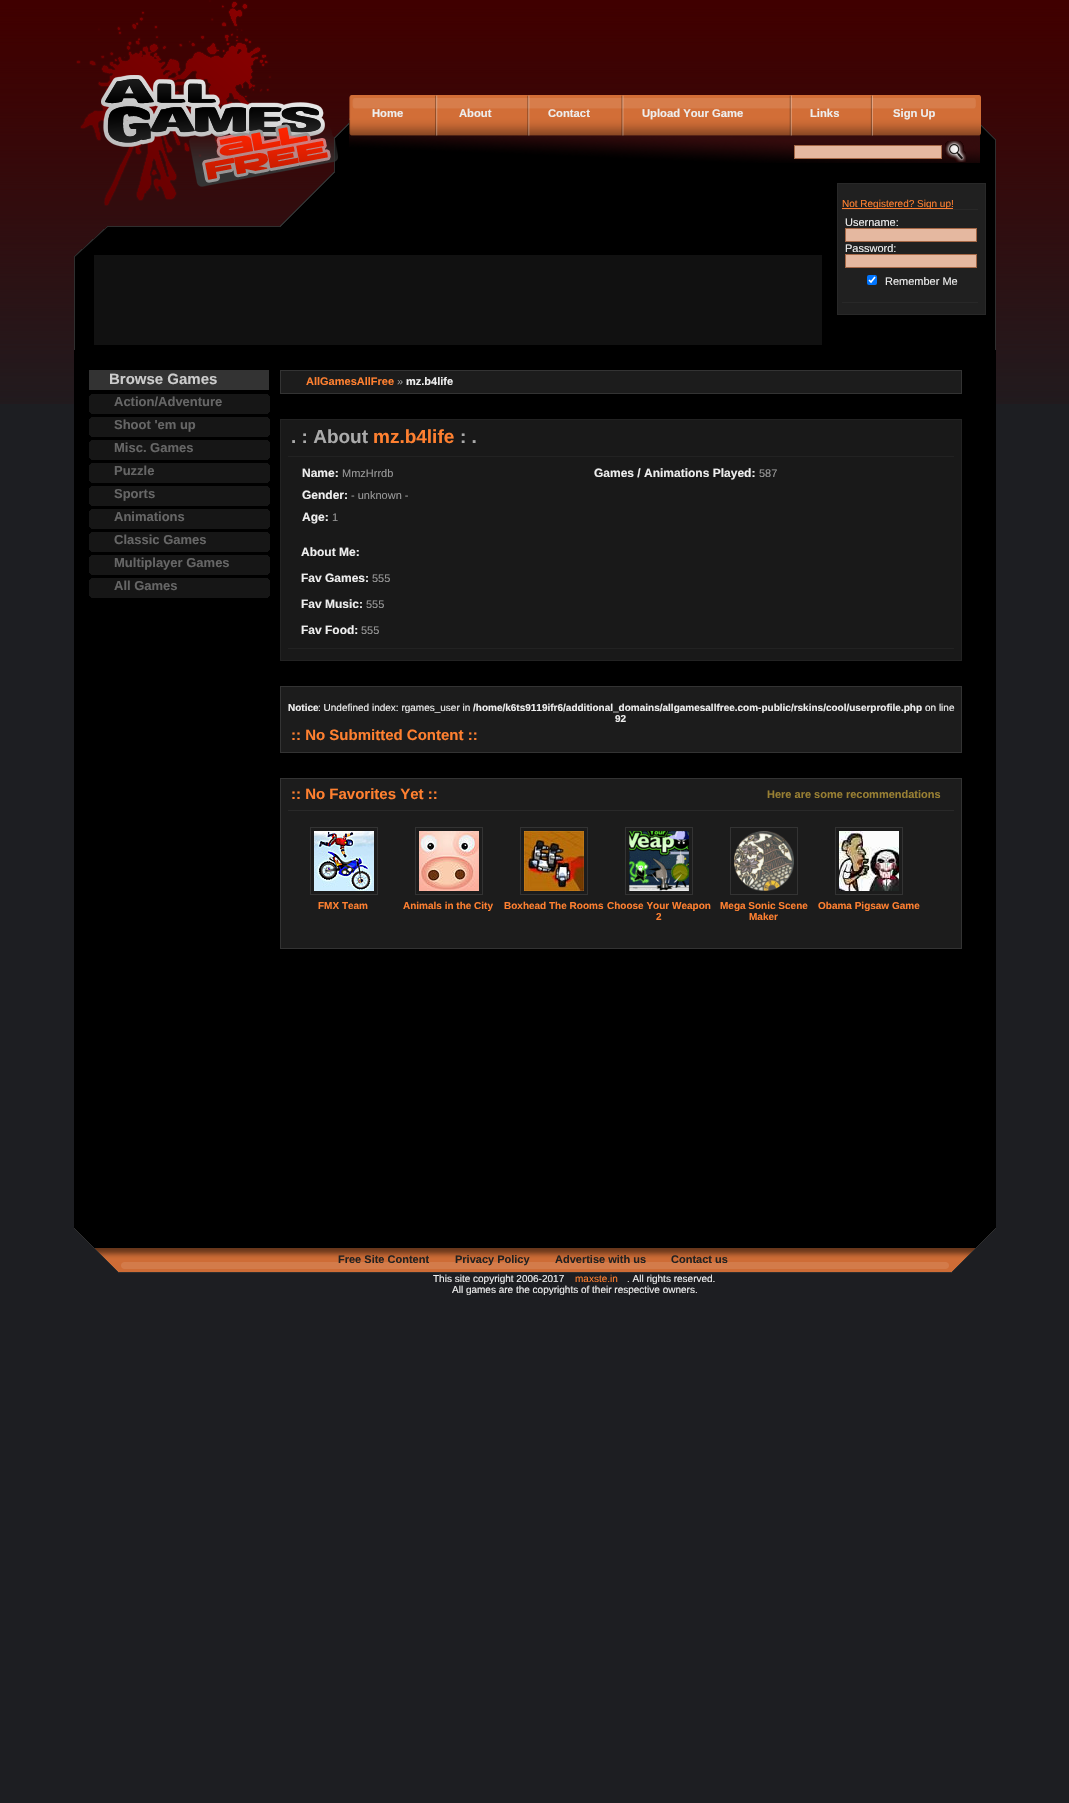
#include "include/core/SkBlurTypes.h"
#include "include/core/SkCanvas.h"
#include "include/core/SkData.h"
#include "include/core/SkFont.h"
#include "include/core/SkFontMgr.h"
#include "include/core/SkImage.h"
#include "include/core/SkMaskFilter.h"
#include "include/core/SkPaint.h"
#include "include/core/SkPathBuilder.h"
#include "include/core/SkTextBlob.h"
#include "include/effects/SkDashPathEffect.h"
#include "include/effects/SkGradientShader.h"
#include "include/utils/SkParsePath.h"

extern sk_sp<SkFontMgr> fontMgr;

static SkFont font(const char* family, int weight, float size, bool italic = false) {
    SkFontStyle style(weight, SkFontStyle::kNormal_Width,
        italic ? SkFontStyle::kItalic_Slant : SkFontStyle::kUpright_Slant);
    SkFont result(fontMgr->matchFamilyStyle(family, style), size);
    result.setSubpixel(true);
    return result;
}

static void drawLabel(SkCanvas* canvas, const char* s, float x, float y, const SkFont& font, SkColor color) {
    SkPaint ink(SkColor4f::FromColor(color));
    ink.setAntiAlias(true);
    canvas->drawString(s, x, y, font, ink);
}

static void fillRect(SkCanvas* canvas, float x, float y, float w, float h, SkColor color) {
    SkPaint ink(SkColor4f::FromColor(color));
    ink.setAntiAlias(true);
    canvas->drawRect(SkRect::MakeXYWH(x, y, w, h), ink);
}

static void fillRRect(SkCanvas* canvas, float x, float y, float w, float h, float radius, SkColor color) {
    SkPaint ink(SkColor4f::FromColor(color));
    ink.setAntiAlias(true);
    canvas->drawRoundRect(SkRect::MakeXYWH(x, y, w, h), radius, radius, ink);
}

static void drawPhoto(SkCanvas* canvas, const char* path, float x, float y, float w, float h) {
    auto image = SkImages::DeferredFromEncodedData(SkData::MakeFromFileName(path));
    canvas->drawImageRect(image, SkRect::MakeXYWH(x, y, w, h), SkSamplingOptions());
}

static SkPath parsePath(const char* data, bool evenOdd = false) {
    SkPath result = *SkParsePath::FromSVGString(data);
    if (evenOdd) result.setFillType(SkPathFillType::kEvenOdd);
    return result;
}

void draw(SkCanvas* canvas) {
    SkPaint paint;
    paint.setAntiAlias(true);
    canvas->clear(0xFF1D1E22);
    drawPhoto(canvas, "assets/img1.png", 0, 0, 1069, 404);
    drawPhoto(canvas, "assets/img2.png", 74, 123, 922, 227);
    drawPhoto(canvas, "assets/img3.png", 76, 0, 262, 206);
    drawPhoto(canvas, "assets/img4.png", 349, 95, 632, 68);
    SkFont font1 = font("Liberation Sans", 700, 11.25f);
    drawLabel(canvas, "Home", 372, 117, font1, 0xFFEEEEEE);
    drawLabel(canvas, "About", 459, 117, font1, 0xFFEEEEEE);
    drawLabel(canvas, "Contact", 548, 117, font1, 0xFFEEEEEE);
    drawLabel(canvas, "Upload Your Game", 642, 117, font1, 0xFFEEEEEE);
    drawLabel(canvas, "Links", 810, 117, font1, 0xFFEEEEEE);
    drawLabel(canvas, "Sign Up", 893, 117, font1, 0xFFEEEEEE);
    paint.setColor(0xFFE5B8A0);
    canvas->drawRect(SkRect::MakeXYWH(794.5f, 145.5f, 147, 13), paint);
    paint.setStroke(true);
    paint.setStrokeWidth(1);
    paint.setColor(0xFFA46746);
    canvas->drawRect(SkRect::MakeXYWH(794.5f, 145.5f, 147, 13), paint);
    drawPhoto(canvas, "assets/img5.png", 945, 141, 21, 21);
    paint.setStroke(false);
    paint.setColor(0xFF202020);
    canvas->drawRect(SkRect::MakeXYWH(837.5f, 183.5f, 148, 131), paint);
    paint.setStroke(true);
    paint.setColor(0xFF282828);
    canvas->drawRect(SkRect::MakeXYWH(837.5f, 183.5f, 148, 131), paint);
    fillRect(canvas, 842, 208, 111, 1, 0xFFFF8030);
    SkFont font2 = font("Liberation Sans", 400, 10);
    drawLabel(canvas, "Not Registered? Sign up!", 842, 207, font2, 0xFFFF8030);
    fillRect(canvas, 842, 209, 136, 1, 0xFF282828);
    fillRect(canvas, 842, 302, 136, 1, 0xFF282828);
    SkFont font3 = font("Liberation Sans", 400, 11);
    drawLabel(canvas, "Username:", 845, 226, font3, 0xFFEEEEEE);
    paint.setStroke(false);
    paint.setColor(0xFFE5B8A0);
    canvas->drawRect(SkRect::MakeXYWH(845.5f, 228.5f, 131, 13), paint);
    paint.setStroke(true);
    paint.setColor(0xFFA46746);
    canvas->drawRect(SkRect::MakeXYWH(845.5f, 228.5f, 131, 13), paint);
    drawLabel(canvas, "Password:", 845, 252, font3, 0xFFEEEEEE);
    paint.setStroke(false);
    paint.setColor(0xFFE5B8A0);
    canvas->drawRect(SkRect::MakeXYWH(845.5f, 254.5f, 131, 13), paint);
    paint.setStroke(true);
    paint.setColor(0xFFA46746);
    canvas->drawRect(SkRect::MakeXYWH(845.5f, 254.5f, 131, 13), paint);
    fillRRect(canvas, 867, 275, 10, 10, 2, 0xFF0075FF);
    paint.setStrokeWidth(1.6f);
    paint.setColor(0xFFFFFFFF);
    canvas->drawPath(parsePath("M869 280L871 282L875 277"), paint);
    drawLabel(canvas, "Remember Me", 885, 285, font3, 0xFFEEEEEE);
    fillRect(canvas, 94, 255, 728, 90, 0xFF111111);
    fillRect(canvas, 74, 350, 922, 878, 0xFF000000);
    fillRect(canvas, 89, 370, 180, 20, 0xFF333333);
    SkFont font4 = font("Liberation Sans", 700, 15);
    drawLabel(canvas, "Browse Games", 109, 384, font4, 0xFFCCCCCC);
    drawPhoto(canvas, "assets/img6.png", 89, 394, 181, 20);
    SkFont font5 = font("Liberation Sans", 700, 13);
    drawLabel(canvas, "Action/Adventure", 114, 406, font5, 0xFF666666);
    drawPhoto(canvas, "assets/img6.png", 89, 417, 181, 20);
    drawLabel(canvas, "Shoot 'em up", 114, 429, font5, 0xFF666666);
    drawPhoto(canvas, "assets/img6.png", 89, 440, 181, 20);
    drawLabel(canvas, "Misc. Games", 114, 452, font5, 0xFF666666);
    drawPhoto(canvas, "assets/img6.png", 89, 463, 181, 20);
    drawLabel(canvas, "Puzzle", 114, 475, font5, 0xFF666666);
    drawPhoto(canvas, "assets/img6.png", 89, 486, 181, 20);
    drawLabel(canvas, "Sports", 114, 498, font5, 0xFF666666);
    drawPhoto(canvas, "assets/img6.png", 89, 509, 181, 20);
    drawLabel(canvas, "Animations", 114, 521, font5, 0xFF666666);
    drawPhoto(canvas, "assets/img6.png", 89, 532, 181, 20);
    drawLabel(canvas, "Classic Games", 114, 544, font5, 0xFF666666);
    drawPhoto(canvas, "assets/img6.png", 89, 555, 181, 20);
    drawLabel(canvas, "Multiplayer Games", 114, 567, font5, 0xFF666666);
    drawPhoto(canvas, "assets/img6.png", 89, 578, 181, 20);
    drawLabel(canvas, "All Games", 114, 590, font5, 0xFF666666);
    paint.setStroke(false);
    paint.setColor(0xFF1C1C1C);
    canvas->drawRect(SkRect::MakeXYWH(280.5f, 370.5f, 681, 23), paint);
    paint.setStroke(true);
    paint.setStrokeWidth(1);
    paint.setColor(0xFF333333);
    canvas->drawRect(SkRect::MakeXYWH(280.5f, 370.5f, 681, 23), paint);
    SkFont font6 = font("Liberation Sans", 700, 11);
    drawLabel(canvas, "AllGamesAllFree", 306, 385, font6, 0xFFFF8030);
    drawLabel(canvas, "»", 397, 385, font3, 0xFF999999);
    drawLabel(canvas, "mz.b4life", 406, 385, font6, 0xFFEEEEEE);
    paint.setStroke(false);
    paint.setColor(0xFF191919);
    canvas->drawRect(SkRect::MakeXYWH(280.5f, 419.5f, 681, 241), paint);
    paint.setStroke(true);
    paint.setColor(0xFF222222);
    canvas->drawRect(SkRect::MakeXYWH(280.5f, 419.5f, 681, 241), paint);
    SkFont font7 = font("Liberation Sans", 700, 19);
    drawLabel(canvas, ". : About", 291, 443, font7, 0xFFAAAAAA);
    drawLabel(canvas, "mz.b4life", 373, 443, font7, 0xFFFF8030);
    drawLabel(canvas, ": .", 460, 443, font7, 0xFFAAAAAA);
    fillRect(canvas, 288, 456, 666, 1, 0xFF222222);
    SkFont font8 = font("Liberation Sans", 700, 12);
    drawLabel(canvas, "Name:", 302, 477, font8, 0xFFEEEEEE);
    drawLabel(canvas, "MmzHrrdb", 342, 477, font3, 0xFF999999);
    drawLabel(canvas, "Games / Animations Played:", 594, 477, font8, 0xFFEEEEEE);
    drawLabel(canvas, "587", 759, 477, font3, 0xFF999999);
    drawLabel(canvas, "Gender:", 302, 499, font8, 0xFFEEEEEE);
    drawLabel(canvas, "- unknown -", 351, 499, font3, 0xFF999999);
    drawLabel(canvas, "Age:", 302, 521, font8, 0xFFEEEEEE);
    drawLabel(canvas, "1", 332, 521, font3, 0xFF999999);
    drawLabel(canvas, "About Me:", 301, 556, font8, 0xFFEEEEEE);
    drawLabel(canvas, "Fav Games:", 301, 582, font8, 0xFFEEEEEE);
    drawLabel(canvas, "555", 372, 582, font3, 0xFF999999);
    drawLabel(canvas, "Fav Music:", 301, 608, font8, 0xFFEEEEEE);
    drawLabel(canvas, "555", 366, 608, font3, 0xFF999999);
    drawLabel(canvas, "Fav Food:", 301, 634, font8, 0xFFEEEEEE);
    drawLabel(canvas, "555", 361, 634, font3, 0xFF999999);
    fillRect(canvas, 288, 648, 666, 1, 0xFF222222);
    paint.setStroke(false);
    paint.setColor(0xFF1C1C1C);
    canvas->drawRect(SkRect::MakeXYWH(280.5f, 686.5f, 681, 66), paint);
    paint.setStroke(true);
    paint.setColor(0xFF333333);
    canvas->drawRect(SkRect::MakeXYWH(280.5f, 686.5f, 681, 66), paint);
    SkFont font9 = font("Liberation Sans", 700, 10);
    drawLabel(canvas, "Notice", 288, 711, font9, 0xFFEEEEEE);
    drawLabel(canvas, ": Undefined index: rgames_user in", 318, 711, font2, 0xFFEEEEEE);
    drawLabel(canvas, "/home/k6ts9119ifr6/additional_domains/allgamesallfree.com-public/rskins/cool/userprofile.php", 473, 711, font9, 0xFFEEEEEE);
    drawLabel(canvas, "on line", 925, 711, font2, 0xFFEEEEEE);
    drawLabel(canvas, "92", 615, 722, font9, 0xFFEEEEEE);
    drawLabel(canvas, ":: No Submitted Content ::", 291, 740, font4, 0xFFFF8030);
    paint.setStroke(false);
    paint.setColor(0xFF1C1C1C);
    canvas->drawRect(SkRect::MakeXYWH(280.5f, 778.5f, 681, 170), paint);
    paint.setStroke(true);
    paint.setColor(0xFF333333);
    canvas->drawRect(SkRect::MakeXYWH(280.5f, 778.5f, 681, 170), paint);
    drawLabel(canvas, ":: No Favorites Yet ::", 291, 799, font4, 0xFFFF8030);
    drawLabel(canvas, "Here are some recommendations", 767, 798, font6, 0xFF998033);
    fillRect(canvas, 288, 810, 666, 1, 0xFF292929);
    canvas->drawRect(SkRect::MakeXYWH(310.5f, 827.5f, 67, 67), paint);
    drawPhoto(canvas, "assets/img7.png", 314, 831, 60, 60);
    drawLabel(canvas, "FMX Team", 318, 909, font9, 0xFFFF8030);
    canvas->drawRect(SkRect::MakeXYWH(415.5f, 827.5f, 67, 67), paint);
    drawPhoto(canvas, "assets/img8.png", 419, 831, 60, 60);
    drawLabel(canvas, "Animals in the City", 403, 909, font9, 0xFFFF8030);
    canvas->drawRect(SkRect::MakeXYWH(520.5f, 827.5f, 67, 67), paint);
    drawPhoto(canvas, "assets/img9.png", 524, 831, 60, 60);
    drawLabel(canvas, "Boxhead The Rooms", 504, 909, font9, 0xFFFF8030);
    canvas->drawRect(SkRect::MakeXYWH(625.5f, 827.5f, 67, 67), paint);
    drawPhoto(canvas, "assets/img10.png", 629, 831, 60, 60);
    drawLabel(canvas, "Choose Your Weapon", 607, 909, font9, 0xFFFF8030);
    drawLabel(canvas, "2", 656, 920, font9, 0xFFFF8030);
    canvas->drawRect(SkRect::MakeXYWH(730.5f, 827.5f, 67, 67), paint);
    drawPhoto(canvas, "assets/img11.png", 734, 831, 60, 60);
    drawLabel(canvas, "Mega Sonic Scene", 720, 909, font9, 0xFFFF8030);
    drawLabel(canvas, "Maker", 749, 920, font9, 0xFFFF8030);
    canvas->drawRect(SkRect::MakeXYWH(835.5f, 827.5f, 67, 67), paint);
    drawPhoto(canvas, "assets/img12.png", 839, 831, 60, 60);
    drawLabel(canvas, "Obama Pigsaw Game", 818, 909, font9, 0xFFFF8030);
    drawPhoto(canvas, "assets/img13.png", 74, 1228, 50, 45);
    drawPhoto(canvas, "assets/img14.png", 124, 1228, 822, 45);
    drawLabel(canvas, "Free Site Content", 338, 1263, font6, 0xFF212121);
    drawLabel(canvas, "Privacy Policy", 455, 1263, font6, 0xFF212121);
    drawLabel(canvas, "Advertise with us", 555, 1263, font6, 0xFF212121);
    drawLabel(canvas, "Contact us", 671, 1263, font6, 0xFF212121);
    drawPhoto(canvas, "assets/img15.png", 946, 1228, 50, 45);
    drawLabel(canvas, "This site copyright 2006-2017", 433, 1282, font2, 0xFFEEEEEE);
    drawLabel(canvas, "maxste.in", 575, 1282, font2, 0xFFFF8030);
    drawLabel(canvas, ". All rights reserved.", 627, 1282, font2, 0xFFEEEEEE);
    drawLabel(canvas, "All games are the copyrights of their respective owners.", 452, 1293, font2, 0xFFEEEEEE);
}
